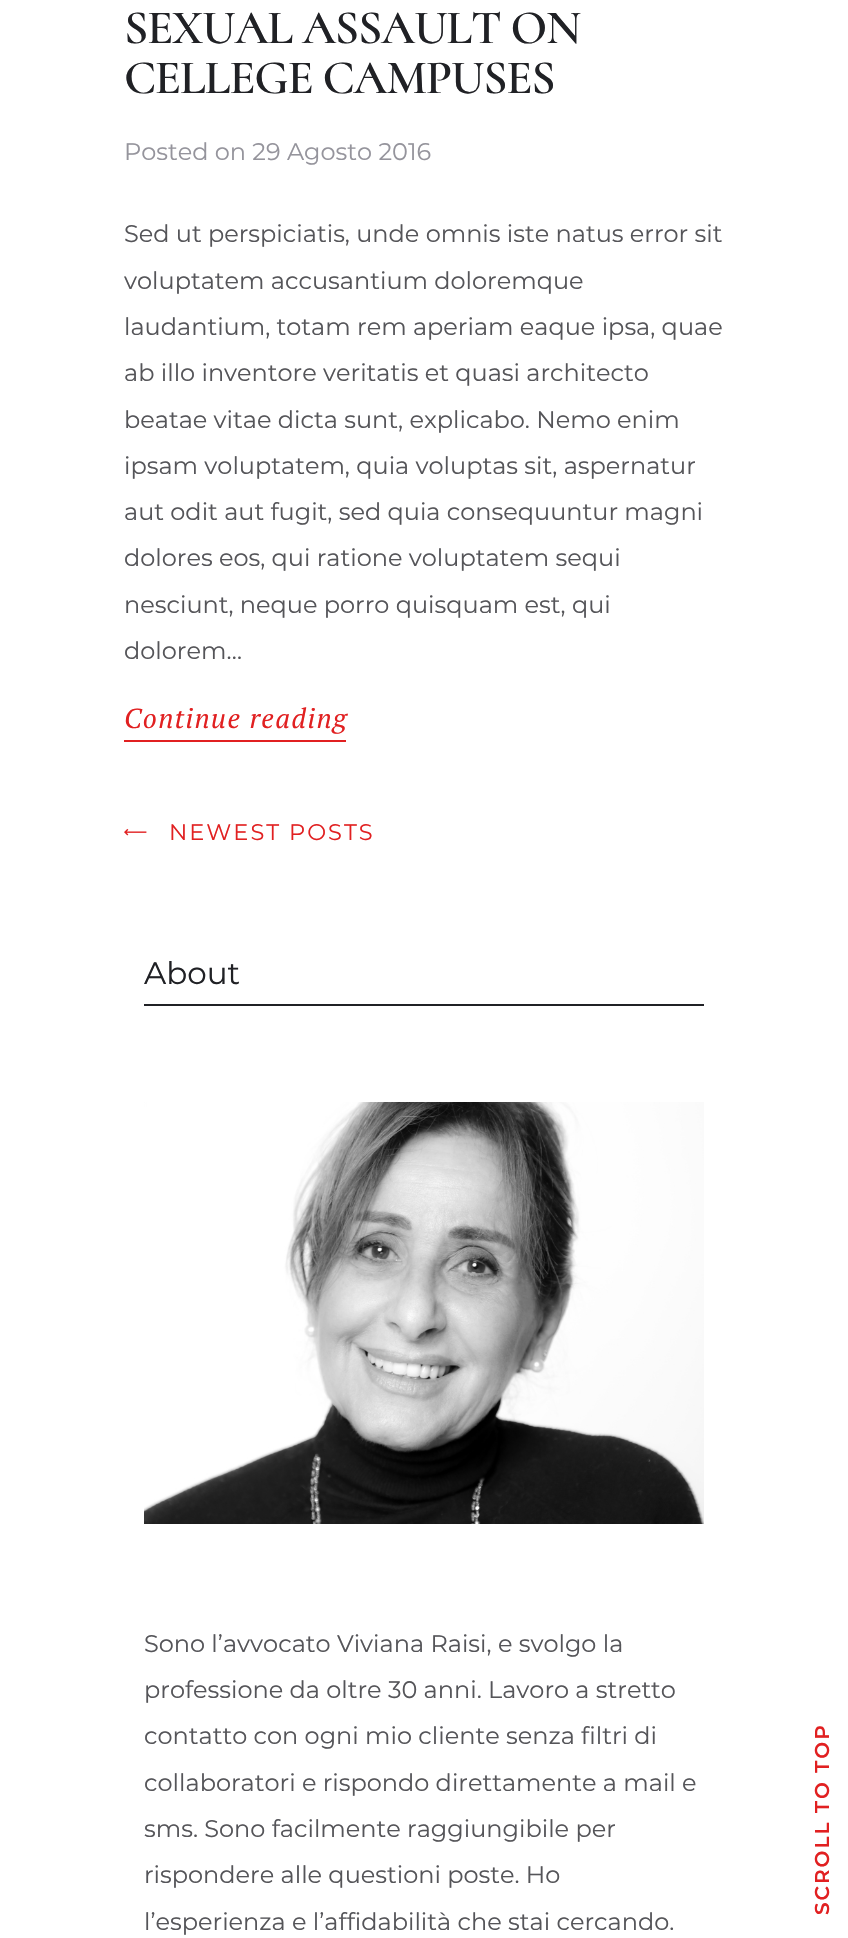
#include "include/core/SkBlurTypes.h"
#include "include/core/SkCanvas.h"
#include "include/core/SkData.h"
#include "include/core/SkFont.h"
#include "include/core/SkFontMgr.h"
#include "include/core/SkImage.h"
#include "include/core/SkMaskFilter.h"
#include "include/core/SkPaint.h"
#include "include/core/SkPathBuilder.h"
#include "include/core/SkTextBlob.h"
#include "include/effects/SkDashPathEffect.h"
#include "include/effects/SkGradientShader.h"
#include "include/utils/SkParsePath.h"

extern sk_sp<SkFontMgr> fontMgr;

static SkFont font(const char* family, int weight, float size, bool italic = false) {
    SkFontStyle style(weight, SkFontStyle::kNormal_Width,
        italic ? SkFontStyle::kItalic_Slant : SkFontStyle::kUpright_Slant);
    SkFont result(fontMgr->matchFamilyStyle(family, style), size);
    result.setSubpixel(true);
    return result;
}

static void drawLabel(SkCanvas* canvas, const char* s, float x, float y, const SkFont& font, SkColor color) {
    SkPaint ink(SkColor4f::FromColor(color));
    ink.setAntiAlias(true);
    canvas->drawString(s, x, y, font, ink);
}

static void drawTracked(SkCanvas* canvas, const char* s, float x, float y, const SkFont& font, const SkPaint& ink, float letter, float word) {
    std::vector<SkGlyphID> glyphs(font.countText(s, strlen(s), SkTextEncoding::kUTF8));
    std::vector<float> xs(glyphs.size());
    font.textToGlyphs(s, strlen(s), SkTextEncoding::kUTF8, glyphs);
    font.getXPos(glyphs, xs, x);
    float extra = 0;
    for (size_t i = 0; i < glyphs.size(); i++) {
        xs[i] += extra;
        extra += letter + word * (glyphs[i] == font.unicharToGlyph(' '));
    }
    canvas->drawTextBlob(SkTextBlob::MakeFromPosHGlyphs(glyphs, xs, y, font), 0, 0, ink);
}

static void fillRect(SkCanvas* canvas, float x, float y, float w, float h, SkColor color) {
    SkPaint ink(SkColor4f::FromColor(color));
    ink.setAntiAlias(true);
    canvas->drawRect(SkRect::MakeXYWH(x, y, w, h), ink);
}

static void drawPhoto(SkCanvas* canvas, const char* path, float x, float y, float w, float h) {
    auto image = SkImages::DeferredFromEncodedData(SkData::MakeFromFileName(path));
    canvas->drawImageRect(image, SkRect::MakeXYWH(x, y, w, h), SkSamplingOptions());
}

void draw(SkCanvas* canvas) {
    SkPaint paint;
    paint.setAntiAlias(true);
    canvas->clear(0xFFFFFFFF);
    SkFont font1 = font("Cormorant", 600, 48);
    paint.setColor(0xFF202125);
    drawTracked(canvas, "SEXUAL ASSAULT ON", 124, 43, font1, paint, -1.25f, 0);
    drawTracked(canvas, "CELLEGE CAMPUSES", 124, 93, font1, paint, -1.25f, 0);
    SkFont font2 = font("Montserrat", 400, 24);
    drawLabel(canvas, "Posted on 29 Agosto 2016", 124, 160, font2, 0xFF95949C);
    drawLabel(canvas, "Sed ut perspiciatis, unde omnis iste natus error sit", 124, 242, font2, 0xFF555559);
    drawLabel(canvas, "voluptatem accusantium doloremque", 124, 289, font2, 0xFF555559);
    drawLabel(canvas, "laudantium, totam rem aperiam eaque ipsa, quae", 124, 335, font2, 0xFF555559);
    drawLabel(canvas, "ab illo inventore veritatis et quasi architecto", 124, 381, font2, 0xFF555559);
    drawLabel(canvas, "beatae vitae dicta sunt, explicabo. Nemo enim", 124, 428, font2, 0xFF555559);
    drawLabel(canvas, "ipsam voluptatem, quia voluptas sit, aspernatur", 124, 474, font2, 0xFF555559);
    drawLabel(canvas, "aut odit aut fugit, sed quia consequuntur magni", 124, 520, font2, 0xFF555559);
    drawLabel(canvas, "dolores eos, qui ratione voluptatem sequi", 124, 566, font2, 0xFF555559);
    drawLabel(canvas, "nesciunt, neque porro quisquam est, qui", 124, 613, font2, 0xFF555559);
    drawLabel(canvas, "dolorem…", 124, 659, font2, 0xFF555559);
    fillRect(canvas, 124, 740, 222, 2, 0xFFE12021);
    SkFont font3 = font("PT Serif", 400, 27.5f, true);
    paint.setColor(0xFFE12021);
    drawTracked(canvas, "Continue reading", 124, 728, font3, paint, 1.4f, 0);
    drawPhoto(canvas, "assets/img1.png", 124, 828, 23, 8);
    SkFont font4 = font("Montserrat", 400, 22.5f);
    drawTracked(canvas, "NEWEST POSTS", 169, 840, font4, paint, 2, 0);
    fillRect(canvas, 144, 1004, 560, 2, 0xFF202125);
    SkFont font5 = font("Montserrat", 400, 31);
    drawLabel(canvas, "About", 144, 984, font5, 0xFF202125);
    drawPhoto(canvas, "assets/img2.png", 144, 1102, 560, 422);
    drawLabel(canvas, "Sono l’avvocato Viviana Raisi, e svolgo la", 144, 1652, font2, 0xFF555559);
    drawLabel(canvas, "professione da oltre 30 anni. Lavoro a stretto", 144, 1698, font2, 0xFF555559);
    drawLabel(canvas, "contatto con ogni mio cliente senza filtri di", 144, 1744, font2, 0xFF555559);
    drawLabel(canvas, "collaboratori e rispondo direttamente a mail e", 144, 1791, font2, 0xFF555559);
    drawLabel(canvas, "sms. Sono facilmente raggiungibile per", 144, 1837, font2, 0xFF555559);
    drawLabel(canvas, "rispondere alle questioni poste. Ho", 144, 1883, font2, 0xFF555559);
    drawLabel(canvas, "l’esperienza e l’affidabilità che stai cercando.", 144, 1930, font2, 0xFF555559);
    SkFont font6 = font("Montserrat", 600, 20);
    canvas->save();
    canvas->rotate(-90, 829, 1915);
    drawTracked(canvas, "SCROLL TO TOP", 829, 1915, font6, paint, 2, 0);
    canvas->restore();
}
